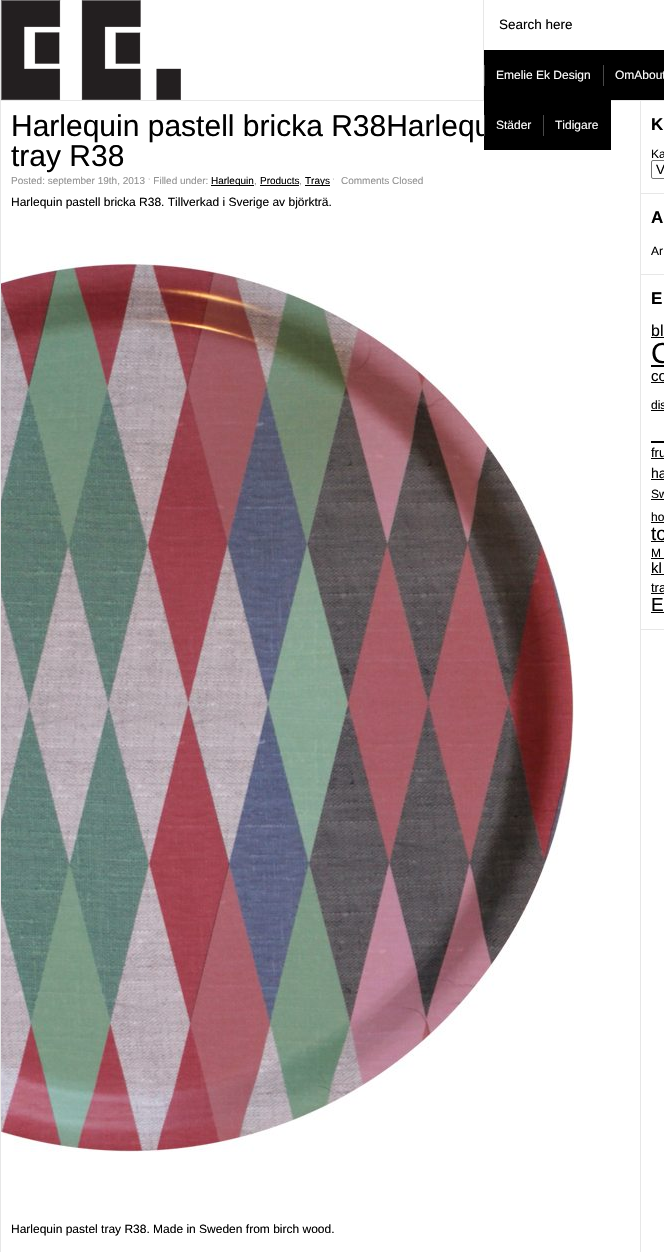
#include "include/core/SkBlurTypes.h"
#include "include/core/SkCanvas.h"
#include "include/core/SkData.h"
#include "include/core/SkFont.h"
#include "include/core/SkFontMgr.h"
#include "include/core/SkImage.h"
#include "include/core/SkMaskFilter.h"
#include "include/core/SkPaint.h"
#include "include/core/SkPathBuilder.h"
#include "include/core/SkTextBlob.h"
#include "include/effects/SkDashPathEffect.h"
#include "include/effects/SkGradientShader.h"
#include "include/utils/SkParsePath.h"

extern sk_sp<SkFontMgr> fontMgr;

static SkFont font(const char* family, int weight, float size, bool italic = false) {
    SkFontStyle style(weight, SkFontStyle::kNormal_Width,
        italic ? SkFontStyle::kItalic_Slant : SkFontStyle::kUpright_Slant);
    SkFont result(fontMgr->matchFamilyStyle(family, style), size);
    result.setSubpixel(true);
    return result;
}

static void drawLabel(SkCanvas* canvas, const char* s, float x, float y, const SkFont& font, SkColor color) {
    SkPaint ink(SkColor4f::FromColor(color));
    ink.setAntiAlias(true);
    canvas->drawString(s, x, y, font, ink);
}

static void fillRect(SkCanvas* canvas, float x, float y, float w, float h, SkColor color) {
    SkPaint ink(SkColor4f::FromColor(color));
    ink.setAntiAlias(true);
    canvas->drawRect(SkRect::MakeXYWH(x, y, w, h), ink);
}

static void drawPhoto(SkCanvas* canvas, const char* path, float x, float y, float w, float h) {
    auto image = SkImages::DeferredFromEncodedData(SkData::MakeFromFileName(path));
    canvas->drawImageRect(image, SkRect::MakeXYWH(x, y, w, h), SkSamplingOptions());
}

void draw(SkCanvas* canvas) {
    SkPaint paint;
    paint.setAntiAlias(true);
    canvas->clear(0xFFFFFFFF);
    fillRect(canvas, 0, 0, 1, 1252, 0xFFE7E7E7);
    fillRect(canvas, 641, 100, 23, 1, 0xFFE7E7E7);
    fillRect(canvas, 483, 0, 1, 100, 0xFFE7E7E7);
    drawPhoto(canvas, "assets/img1.png", 1, 0, 180, 100);
    SkFont font1 = font("Liberation Sans", 400, 13.5f);
    drawLabel(canvas, "Search here", 499, 29, font1, 0xFF000000);
    fillRect(canvas, 484, 50, 180, 50, 0xFF000000);
    fillRect(canvas, 484, 65, 1, 21, 0xFF494949);
    SkFont font2 = font("Liberation Sans", 400, 12);
    drawLabel(canvas, "Emelie Ek Design", 496, 79, font2, 0xFFFFFFFF);
    fillRect(canvas, 603, 65, 1, 21, 0xFF494949);
    drawLabel(canvas, "OmAbout", 615, 79, font2, 0xFFFFFFFF);
    fillRect(canvas, 1, 100, 639, 1, 0xFFE7E7E7);
    fillRect(canvas, 484, 100, 127, 50, 0xFF000000);
    SkFont font3 = font("Liberation Sans", 400, 30);
    drawLabel(canvas, "Harlequin pastell bricka R38Harlequ", 11, 136, font3, 0xFF000000);
    fillRect(canvas, 484, 115, 1, 21, 0xFF494949);
    drawLabel(canvas, "Städer", 496, 129, font2, 0xFFFFFFFF);
    fillRect(canvas, 543, 115, 1, 21, 0xFF494949);
    drawLabel(canvas, "Tidigare", 555, 129, font2, 0xFFFFFFFF);
    fillRect(canvas, 640, 100, 1, 1152, 0xFFE7E7E7);
    drawLabel(canvas, "tray R38", 11, 166, font3, 0xFF000000);
    SkFont font4 = font("Liberation Sans", 400, 10);
    drawLabel(canvas, "Posted: september 19th, 2013 ˑ Filled under:", 11, 184, font4, 0xFF929292);
    fillRect(canvas, 211, 185, 43, 1, 0xFF000000);
    drawLabel(canvas, "Harlequin", 211, 184, font4, 0xFF000000);
    drawLabel(canvas, "Products", 260, 184, font4, 0xFF000000);
    fillRect(canvas, 260, 185, 39, 1, 0xFF000000);
    fillRect(canvas, 305, 185, 25, 1, 0xFF000000);
    drawLabel(canvas, "Trays", 305, 184, font4, 0xFF000000);
    drawLabel(canvas, "ˑ", 332, 184, font4, 0xFF929292);
    drawLabel(canvas, "Comments Closed", 341, 184, font4, 0xFF929292);
    drawLabel(canvas, ",", 254, 184, font4, 0xFF929292);
    drawLabel(canvas, ",", 299, 184, font4, 0xFF929292);
    drawLabel(canvas, "Harlequin pastell bricka R38. Tillverkad i Sverige av björkträ.", 11, 206, font2, 0xFF000000);
    drawPhoto(canvas, "assets/img2.png", 1, 256, 573, 896);
    drawLabel(canvas, "Harlequin pastel tray R38. Made in Sweden from birch wood.", 11, 1233, font2, 0xFF000000);
    fillRect(canvas, 640, 629, 24, 1, 0xFFE7E7E7);
    SkFont font5 = font("Liberation Sans", 700, 17);
    drawLabel(canvas, "K", 651, 130, font5, 0xFF000000);
    drawLabel(canvas, "Ka", 651, 158, font2, 0xFF000000);
    paint.setStroke(true);
    paint.setStrokeWidth(1);
    paint.setColor(0xFF767676);
    canvas->drawRoundRect(SkRect::MakeXYWH(651.5f, 160.5f, 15, 18), 1.5f, 1.5f, paint);
    drawLabel(canvas, "V", 656, 174, font1, 0xFF000000);
    fillRect(canvas, 641, 193, 23, 1, 0xFFE7E7E7);
    drawLabel(canvas, "A", 651, 223, font5, 0xFF000000);
    drawLabel(canvas, "Ar", 651, 255, font2, 0xFF000000);
    fillRect(canvas, 641, 274, 23, 1, 0xFFE7E7E7);
    drawLabel(canvas, "E", 651, 304, font5, 0xFF000000);
    SkFont font6 = font("Liberation Sans", 400, 16);
    drawLabel(canvas, "bl", 651, 336, font6, 0xFF000000);
    fillRect(canvas, 651, 337, 13, 1, 0xFF000000);
    SkFont font7 = font("Liberation Sans", 400, 29);
    drawLabel(canvas, "C", 651, 363, font7, 0xFF000000);
    fillRect(canvas, 651, 365, 13, 2, 0xFF000000);
    SkFont font8 = font("Liberation Sans", 400, 15);
    drawLabel(canvas, "co", 651, 381, font8, 0xFF000000);
    fillRect(canvas, 651, 382, 13, 1, 0xFF000000);
    drawLabel(canvas, "dis", 651, 409, font2, 0xFF000000);
    fillRect(canvas, 651, 410, 13, 1, 0xFF000000);
    fillRect(canvas, 651, 441, 13, 2, 0xFF000000);
    SkFont font9 = font("Liberation Sans", 400, 13);
    drawLabel(canvas, "fru", 651, 457, font9, 0xFF000000);
    fillRect(canvas, 651, 458, 13, 1, 0xFF000000);
    SkFont font10 = font("Liberation Sans", 400, 14);
    drawLabel(canvas, "ha", 651, 478, font10, 0xFF000000);
    fillRect(canvas, 651, 479, 13, 1, 0xFF000000);
    drawLabel(canvas, "Sw", 651, 498, font2, 0xFF000000);
    fillRect(canvas, 651, 499, 13, 1, 0xFF000000);
    drawLabel(canvas, "ho", 651, 521, font2, 0xFF000000);
    fillRect(canvas, 651, 522, 13, 1, 0xFF000000);
    SkFont font11 = font("Liberation Sans", 400, 19);
    drawLabel(canvas, "to", 651, 540, font11, 0xFF000000);
    fillRect(canvas, 651, 541, 13, 1, 0xFF000000);
    drawLabel(canvas, "M", 651, 557, font2, 0xFF000000);
    fillRect(canvas, 651, 558, 13, 1, 0xFF000000);
    drawLabel(canvas, "kl", 651, 573, font8, 0xFF000000);
    fillRect(canvas, 651, 574, 13, 1, 0xFF000000);
    drawLabel(canvas, "tra", 651, 592, font9, 0xFF000000);
    fillRect(canvas, 651, 593, 13, 1, 0xFF000000);
    drawLabel(canvas, "E", 651, 611, font11, 0xFF000000);
    fillRect(canvas, 651, 612, 13, 1, 0xFF000000);
}
